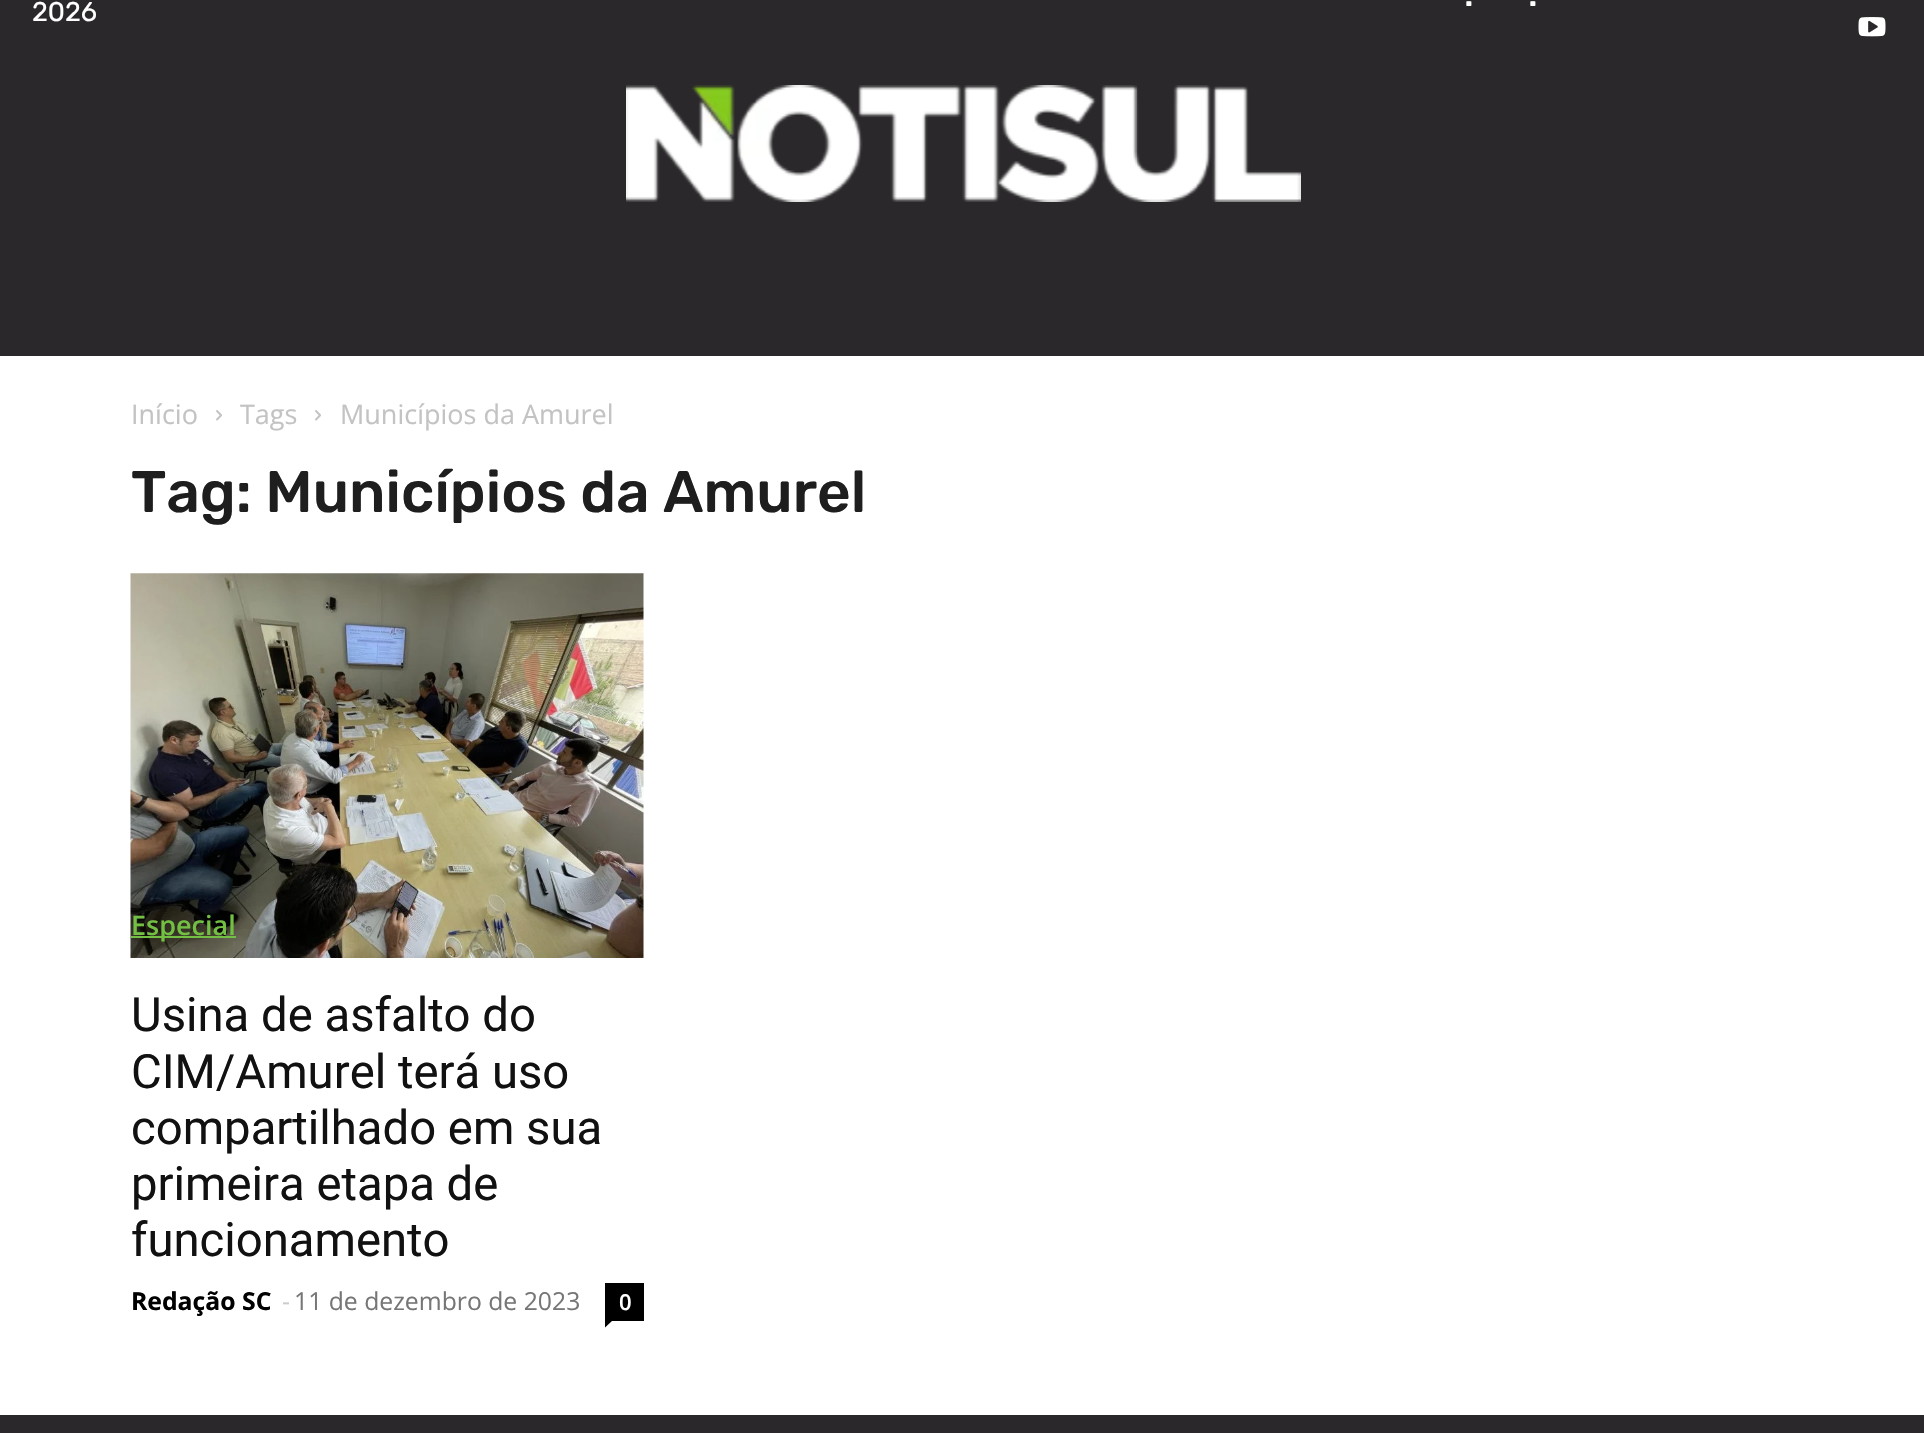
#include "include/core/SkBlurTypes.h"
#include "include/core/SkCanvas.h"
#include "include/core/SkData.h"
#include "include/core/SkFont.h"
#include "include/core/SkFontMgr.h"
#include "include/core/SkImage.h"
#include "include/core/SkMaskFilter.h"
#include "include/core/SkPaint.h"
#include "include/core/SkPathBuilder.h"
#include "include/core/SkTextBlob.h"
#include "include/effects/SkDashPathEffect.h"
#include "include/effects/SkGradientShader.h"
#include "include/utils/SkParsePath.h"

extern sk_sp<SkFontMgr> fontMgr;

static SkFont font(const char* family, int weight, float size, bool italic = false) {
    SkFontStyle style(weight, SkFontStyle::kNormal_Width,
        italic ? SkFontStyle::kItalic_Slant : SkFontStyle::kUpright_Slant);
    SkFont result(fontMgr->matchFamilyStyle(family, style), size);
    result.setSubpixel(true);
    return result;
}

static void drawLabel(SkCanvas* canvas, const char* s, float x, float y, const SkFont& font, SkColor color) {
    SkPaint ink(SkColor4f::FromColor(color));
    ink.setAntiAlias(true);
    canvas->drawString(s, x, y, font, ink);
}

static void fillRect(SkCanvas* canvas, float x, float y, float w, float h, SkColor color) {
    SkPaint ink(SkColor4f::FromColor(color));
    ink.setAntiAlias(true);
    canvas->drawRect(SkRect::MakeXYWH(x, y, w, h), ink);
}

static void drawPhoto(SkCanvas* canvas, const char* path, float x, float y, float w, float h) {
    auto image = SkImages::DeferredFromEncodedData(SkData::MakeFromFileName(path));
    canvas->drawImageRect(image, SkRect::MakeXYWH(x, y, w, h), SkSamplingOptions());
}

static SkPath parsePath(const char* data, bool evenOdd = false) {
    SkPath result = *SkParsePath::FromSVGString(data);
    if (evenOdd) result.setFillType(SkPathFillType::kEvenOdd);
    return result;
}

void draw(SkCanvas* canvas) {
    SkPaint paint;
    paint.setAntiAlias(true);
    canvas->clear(0xFFFFFFFF);
    fillRect(canvas, 0, 0, 1924, 356, 0xFF2A282A);
    SkFont font1 = font("Rubik", 400, 27);
    drawLabel(canvas, "2026", 32, 21, font1, 0xFFFFFFFF);
    SkFont font2 = font("Rubik", 700, 27);
    drawLabel(canvas, ".", 1465, 6, font2, 0xFFFFFFFF);
    drawLabel(canvas, ".", 1529, 6, font2, 0xFFFFFFFF);
    drawPhoto(canvas, "assets/img1.png", 1858, 17, 28, 20);
    drawPhoto(canvas, "assets/img2.png", 626, 85, 675, 117);
    SkFont font3 = font("Open Sans", 400, 27);
    drawLabel(canvas, "Início", 131, 424, font3, 0xFFC3C3C3);
    drawPhoto(canvas, "assets/img3.png", 216, 410, 6, 11);
    drawLabel(canvas, "Tags", 240, 424, font3, 0xFFC3C3C3);
    drawPhoto(canvas, "assets/img3.png", 315, 410, 6, 11);
    drawLabel(canvas, "Municípios da Amurel", 340, 424, font3, 0xFFC3C3C3);
    SkFont font4 = font("Rubik", 500, 58.5f);
    drawLabel(canvas, "Tag: Municípios da Amurel", 131, 512, font4, 0xFF1E1E1E);
    drawPhoto(canvas, "assets/img4.png", 130, 573, 514, 385);
    fillRect(canvas, 131, 936, 105, 2, 0xFF72BF44);
    SkFont font5 = font("Open Sans", 600, 27);
    drawLabel(canvas, "Especial", 131, 935, font5, 0xFF72BF44);
    SkFont font6 = font("Roboto", 400, 47.25f);
    drawLabel(canvas, "Usina de asfalto do", 131, 1031, font6, 0xFF111111);
    drawLabel(canvas, "CIM/Amurel terá uso", 131, 1088, font6, 0xFF111111);
    drawLabel(canvas, "compartilhado em sua", 131, 1144, font6, 0xFF111111);
    drawLabel(canvas, "primeira etapa de", 131, 1200, font6, 0xFF111111);
    drawLabel(canvas, "funcionamento", 131, 1256, font6, 0xFF111111);
    SkFont font7 = font("Open Sans", 700, 24.75f);
    drawLabel(canvas, "Redação SC", 131, 1310, font7, 0xFF000000);
    SkFont font8 = font("Open Sans", 400, 24.75f);
    drawLabel(canvas, "-", 282, 1310, font8, 0xFFCCCCCC);
    drawLabel(canvas, "11 de dezembro de 2023", 294, 1310, font8, 0xFF767676);
    fillRect(canvas, 605, 1283, 39, 38, 0xFF000000);
    SkFont font9 = font("Open Sans", 600, 22);
    drawLabel(canvas, "0", 619, 1310, font9, 0xFFFFFFFF);
    paint.setColor(0xFF000000);
    canvas->drawPath(parsePath("M605 1321H612L605 1327.5Z"), paint);
    fillRect(canvas, 0, 1415, 1924, 18, 0xFF2A282A);
}
